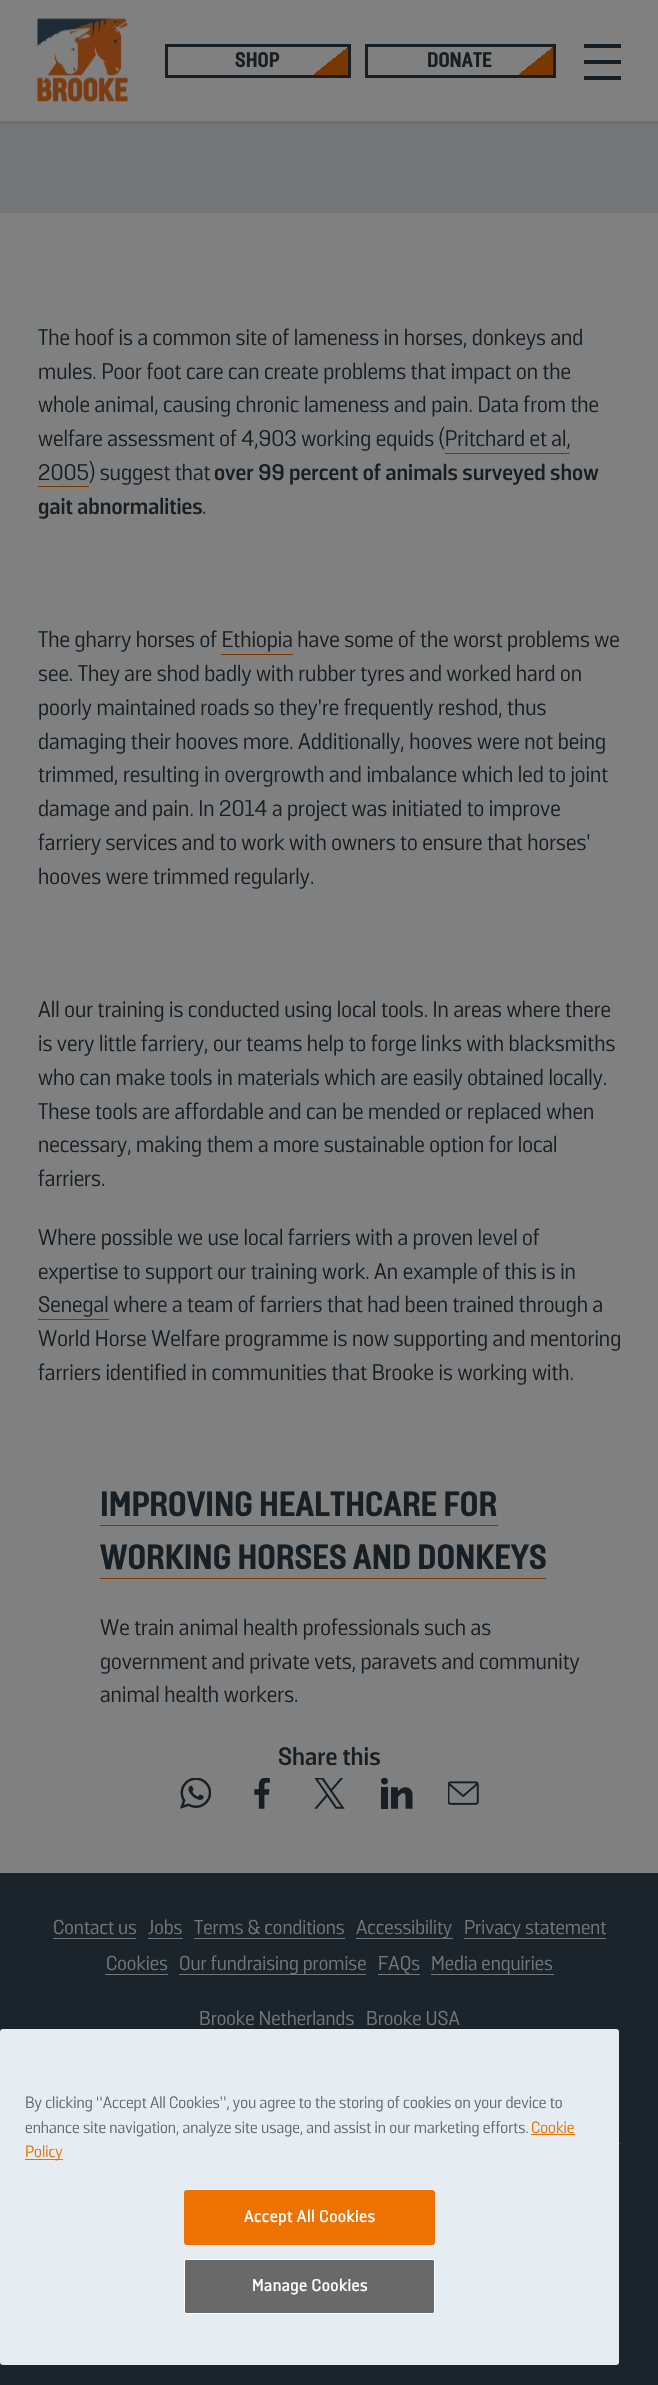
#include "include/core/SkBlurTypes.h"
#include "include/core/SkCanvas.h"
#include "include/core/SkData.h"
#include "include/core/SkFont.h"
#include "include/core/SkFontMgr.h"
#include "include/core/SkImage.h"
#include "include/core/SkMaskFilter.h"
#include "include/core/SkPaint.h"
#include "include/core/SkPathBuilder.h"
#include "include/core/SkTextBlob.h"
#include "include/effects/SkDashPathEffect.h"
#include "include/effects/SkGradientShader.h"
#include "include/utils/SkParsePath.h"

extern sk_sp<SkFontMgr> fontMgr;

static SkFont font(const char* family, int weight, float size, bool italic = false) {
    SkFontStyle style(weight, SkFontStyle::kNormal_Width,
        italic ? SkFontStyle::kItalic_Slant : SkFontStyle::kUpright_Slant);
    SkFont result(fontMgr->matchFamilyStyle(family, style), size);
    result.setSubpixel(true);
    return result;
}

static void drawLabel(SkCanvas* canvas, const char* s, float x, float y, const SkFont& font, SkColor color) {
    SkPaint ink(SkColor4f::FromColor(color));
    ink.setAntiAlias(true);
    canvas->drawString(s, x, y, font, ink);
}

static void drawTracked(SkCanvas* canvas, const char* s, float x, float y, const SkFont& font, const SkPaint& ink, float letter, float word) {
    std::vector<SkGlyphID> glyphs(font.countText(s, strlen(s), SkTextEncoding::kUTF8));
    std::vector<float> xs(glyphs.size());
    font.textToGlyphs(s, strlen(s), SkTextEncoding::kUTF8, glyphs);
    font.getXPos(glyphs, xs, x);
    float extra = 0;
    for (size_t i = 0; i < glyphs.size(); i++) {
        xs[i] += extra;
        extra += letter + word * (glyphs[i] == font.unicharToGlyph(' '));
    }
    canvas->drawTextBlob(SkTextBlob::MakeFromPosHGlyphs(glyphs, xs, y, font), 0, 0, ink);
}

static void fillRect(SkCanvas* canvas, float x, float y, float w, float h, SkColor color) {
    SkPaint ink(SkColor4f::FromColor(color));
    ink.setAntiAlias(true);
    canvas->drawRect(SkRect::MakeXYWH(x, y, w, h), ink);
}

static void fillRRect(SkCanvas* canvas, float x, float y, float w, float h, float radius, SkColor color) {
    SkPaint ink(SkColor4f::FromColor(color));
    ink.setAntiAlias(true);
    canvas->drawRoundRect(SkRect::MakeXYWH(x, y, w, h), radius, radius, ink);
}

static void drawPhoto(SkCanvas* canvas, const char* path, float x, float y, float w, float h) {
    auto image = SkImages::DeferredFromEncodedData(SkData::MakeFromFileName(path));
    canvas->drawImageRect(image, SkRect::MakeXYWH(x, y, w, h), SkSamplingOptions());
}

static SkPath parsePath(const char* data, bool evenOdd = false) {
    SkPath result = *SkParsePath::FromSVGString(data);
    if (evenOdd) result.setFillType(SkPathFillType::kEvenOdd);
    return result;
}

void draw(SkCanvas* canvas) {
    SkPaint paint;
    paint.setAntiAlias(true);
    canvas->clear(0xFF808080);
    paint.setColor(0xFF6B6F73);
    canvas->drawPath(parsePath("M0 121V124H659V3V121Z"), paint);
    drawPhoto(canvas, "assets/img1.png", 37, 18, 91, 85);
    {
        const SkColor colors[] = {0xFF808080, 0xFF773901};
        const float stops[] = {0.5f, 0.5f};
        const SkPoint ends[] = {{317, 43}, {345, 78}};
        paint.setShader(SkGradientShader::MakeLinear(ends, colors, stops, 2, SkTileMode::kClamp));
        paint.setAlpha(255);
    }
    canvas->drawRect(SkRect::MakeXYWH(314, 47, 34, 28), paint);
    paint.setStroke(true);
    paint.setStrokeWidth(3);
    paint.setShader(nullptr);
    paint.setColor(0xFF181F24);
    canvas->drawRect(SkRect::MakeXYWH(166.5f, 45.5f, 183, 31), paint);
    SkFont font1 = font("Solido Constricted", 800, 21);
    drawLabel(canvas, "SHOP", 235, 67, font1, 0xFF181F24);
    paint.setStroke(false);
    {
        const SkColor colors[] = {0xFF808080, 0xFF773901};
        const float stops[] = {0.5f, 0.5f};
        const SkPoint ends[] = {{522, 43}, {550, 78}};
        paint.setShader(SkGradientShader::MakeLinear(ends, colors, stops, 2, SkTileMode::kClamp));
        paint.setAlpha(255);
    }
    canvas->drawRect(SkRect::MakeXYWH(519, 47, 34, 28), paint);
    paint.setStroke(true);
    paint.setShader(nullptr);
    paint.setColor(0xFF181F24);
    canvas->drawRect(SkRect::MakeXYWH(366.5f, 45.5f, 188, 31), paint);
    drawLabel(canvas, "DONATE", 427, 67, font1, 0xFF181F24);
    fillRect(canvas, 584, 60, 37, 4, 0xFF181F24);
    fillRect(canvas, 584, 44, 37, 4, 0xFF181F24);
    fillRect(canvas, 584, 76, 37, 4, 0xFF181F24);
    fillRect(canvas, 0, 124, 658, 89, 0xFF737779);
    SkFont font2 = font("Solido", 400, 22.5f);
    drawLabel(canvas, "The hoof is a common site of lameness in horses, donkeys and", 38, 345, font2, 0xFF181F24);
    drawLabel(canvas, "mules. Poor foot care can create problems that impact on the", 38, 379, font2, 0xFF181F24);
    drawLabel(canvas, "whole animal, causing chronic lameness and pain. Data from the", 38, 412, font2, 0xFF181F24);
    drawLabel(canvas, "welfare assessment of 4,903 working equids (Pritchard et al,", 38, 446, font2, 0xFF181F24);
    drawLabel(canvas, "2005) suggest that", 38, 480, font2, 0xFF181F24);
    fillRect(canvas, 445, 453, 125, 1, 0xFF773901);
    fillRect(canvas, 38, 486, 51, 1, 0xFF773901);
    SkFont font3 = font("Solido", 700, 22.5f);
    drawLabel(canvas, "over 99 percent of animals surveyed show", 214, 480, font3, 0xFF181F24);
    drawLabel(canvas, "gait abnormalities", 38, 514, font3, 0xFF181F24);
    drawLabel(canvas, ".", 202, 514, font2, 0xFF181F24);
    drawLabel(canvas, "The gharry horses of Ethiopia have some of the worst problems we", 38, 647, font2, 0xFF181F24);
    fillRect(canvas, 221, 654, 72, 1, 0xFF773901);
    drawLabel(canvas, "see. They are shod badly with rubber tyres and worked hard on", 38, 681, font2, 0xFF181F24);
    drawLabel(canvas, "poorly maintained roads so they're frequently reshod, thus", 38, 715, font2, 0xFF181F24);
    drawLabel(canvas, "damaging their hooves more. Additionally, hooves were not being", 38, 749, font2, 0xFF181F24);
    drawLabel(canvas, "trimmed, resulting in overgrowth and imbalance which led to joint", 38, 782, font2, 0xFF181F24);
    drawLabel(canvas, "damage and pain. In 2014 a project was initiated to improve", 38, 816, font2, 0xFF181F24);
    drawLabel(canvas, "farriery services and to work with owners to ensure that horses'", 38, 850, font2, 0xFF181F24);
    drawLabel(canvas, "hooves were trimmed regularly.", 38, 884, font2, 0xFF181F24);
    drawLabel(canvas, "All our training is conducted using local tools. In areas where there", 38, 1017, font2, 0xFF181F24);
    drawLabel(canvas, "is very little farriery, our teams help to forge links with blacksmiths", 38, 1051, font2, 0xFF181F24);
    drawLabel(canvas, "who can make tools in materials which are easily obtained locally.", 38, 1085, font2, 0xFF181F24);
    drawLabel(canvas, "These tools are affordable and can be mended or replaced when", 38, 1119, font2, 0xFF181F24);
    drawLabel(canvas, "necessary, making them a more sustainable option for local", 38, 1152, font2, 0xFF181F24);
    drawLabel(canvas, "farriers.", 38, 1186, font2, 0xFF181F24);
    drawLabel(canvas, "Where possible we use local farriers with a proven level of", 38, 1245, font2, 0xFF181F24);
    drawLabel(canvas, "expertise to support our training work. An example of this is in", 38, 1279, font2, 0xFF181F24);
    drawLabel(canvas, "Senegal where a team of farriers that had been trained through a", 38, 1312, font2, 0xFF181F24);
    fillRect(canvas, 38, 1319, 71, 1, 0xFF773901);
    drawLabel(canvas, "World Horse Welfare programme is now supporting and mentoring", 38, 1346, font2, 0xFF181F24);
    drawLabel(canvas, "farriers identified in communities that Brooke is working with.", 38, 1380, font2, 0xFF181F24);
    SkFont font4 = font("Solido Constricted", 800, 35);
    drawLabel(canvas, "IMPROVING HEALTHCARE FOR", 100, 1516, font4, 0xFF181F24);
    fillRect(canvas, 100, 1525, 398, 1, 0xFF773901);
    drawLabel(canvas, "WORKING HORSES AND DONKEYS", 100, 1569, font4, 0xFF181F24);
    fillRect(canvas, 100, 1578, 446, 1, 0xFF773901);
    drawLabel(canvas, "We train animal health professionals such as", 100, 1635, font2, 0xFF181F24);
    drawLabel(canvas, "government and private vets, paravets and community", 100, 1669, font2, 0xFF181F24);
    drawLabel(canvas, "animal health workers.", 100, 1702, font2, 0xFF181F24);
    SkFont font5 = font("Solido", 700, 25);
    drawLabel(canvas, "Share this", 278, 1765, font5, 0xFF181F24);
    drawPhoto(canvas, "assets/img2.png", 180, 1778, 31, 31);
    drawPhoto(canvas, "assets/img3.png", 254, 1778, 16, 31);
    drawPhoto(canvas, "assets/img4.png", 314, 1778, 31, 31);
    drawPhoto(canvas, "assets/img5.png", 381, 1778, 32, 31);
    drawPhoto(canvas, "assets/img6.png", 448, 1781, 31, 24);
    fillRect(canvas, 0, 1873, 658, 512, 0xFF1B242B);
    fillRect(canvas, 53, 1938, 83, 1, 0xFF737779);
    SkFont font6 = font("Solido", 400, 20);
    drawLabel(canvas, "Contact us", 53, 1934, font6, 0xFF737779);
    fillRect(canvas, 148, 1938, 35, 1, 0xFF737779);
    drawLabel(canvas, "Jobs", 148, 1934, font6, 0xFF737779);
    fillRect(canvas, 194, 1938, 151, 1, 0xFF737779);
    drawLabel(canvas, "Terms & conditions", 194, 1934, font6, 0xFF737779);
    fillRect(canvas, 356, 1938, 97, 1, 0xFF737779);
    drawLabel(canvas, "Accessibility", 356, 1934, font6, 0xFF737779);
    fillRect(canvas, 464, 1938, 142, 1, 0xFF737779);
    drawLabel(canvas, "Privacy statement", 464, 1934, font6, 0xFF737779);
    fillRect(canvas, 105, 1974, 63, 1, 0xFF737779);
    drawLabel(canvas, "Cookies", 106, 1970, font6, 0xFF737779);
    fillRect(canvas, 179, 1974, 187, 1, 0xFF737779);
    drawLabel(canvas, "Our fundraising promise", 179, 1970, font6, 0xFF737779);
    fillRect(canvas, 378, 1974, 42, 1, 0xFF737779);
    drawLabel(canvas, "FAQs", 378, 1970, font6, 0xFF737779);
    fillRect(canvas, 431, 1974, 123, 1, 0xFF737779);
    drawLabel(canvas, "Media enquiries", 431, 1970, font6, 0xFF737779);
    drawLabel(canvas, "Brooke Netherlands", 199, 2025, font6, 0xFF737779);
    drawLabel(canvas, "Brooke USA", 366, 2025, font6, 0xFF737779);
    fillRect(canvas, 619, 2143, 2, 1, 0xFF343C43);
    fillRRect(canvas, 0, 2029, 619, 336, 3, 0xFFE6EDF2);
    SkFont font7 = font("Solido", 400, 16.4f);
    drawLabel(canvas, "By clicking “Accept All Cookies”, you agree to the storing of cookies on your device to", 25, 2108, font7, 0xFF696969);
    drawLabel(canvas, "enhance site navigation, analyze site usage, and assist in our marketing efforts.", 25, 2133, font7, 0xFF696969);
    drawLabel(canvas, "Cookie", 531, 2133, font7, 0xFFEE7202);
    fillRect(canvas, 531, 2134, 44, 1, 0xFFEE7202);
    fillRect(canvas, 25, 2159, 38, 1, 0xFFEE7202);
    drawLabel(canvas, "Policy", 25, 2157, font7, 0xFFEE7202);
    paint.setStroke(false);
    paint.setColor(0xFFEE7202);
    canvas->drawRoundRect(SkRect::MakeXYWH(184.5f, 2190.5f, 250, 54), 2, 2, paint);
    paint.setStroke(true);
    paint.setStrokeWidth(1);
    canvas->drawRoundRect(SkRect::MakeXYWH(184.5f, 2190.5f, 250, 54), 2, 2, paint);
    SkFont font8 = font("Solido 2", 700, 16.4f);
    paint.setStroke(false);
    paint.setColor(0xFFFFFFFF);
    drawTracked(canvas, "Accept All Cookies", 244, 2222, font8, paint, 0.8f, 0);
    paint.setColor(0xFF696969);
    canvas->drawRoundRect(SkRect::MakeXYWH(184.5f, 2259.5f, 250, 54), 2, 2, paint);
    paint.setStroke(true);
    paint.setColor(0xFFFFFFFF);
    canvas->drawRoundRect(SkRect::MakeXYWH(184.5f, 2259.5f, 250, 54), 2, 2, paint);
    paint.setStroke(false);
    drawTracked(canvas, "Manage Cookies", 252, 2291, font8, paint, 0.8f, 0);
}
